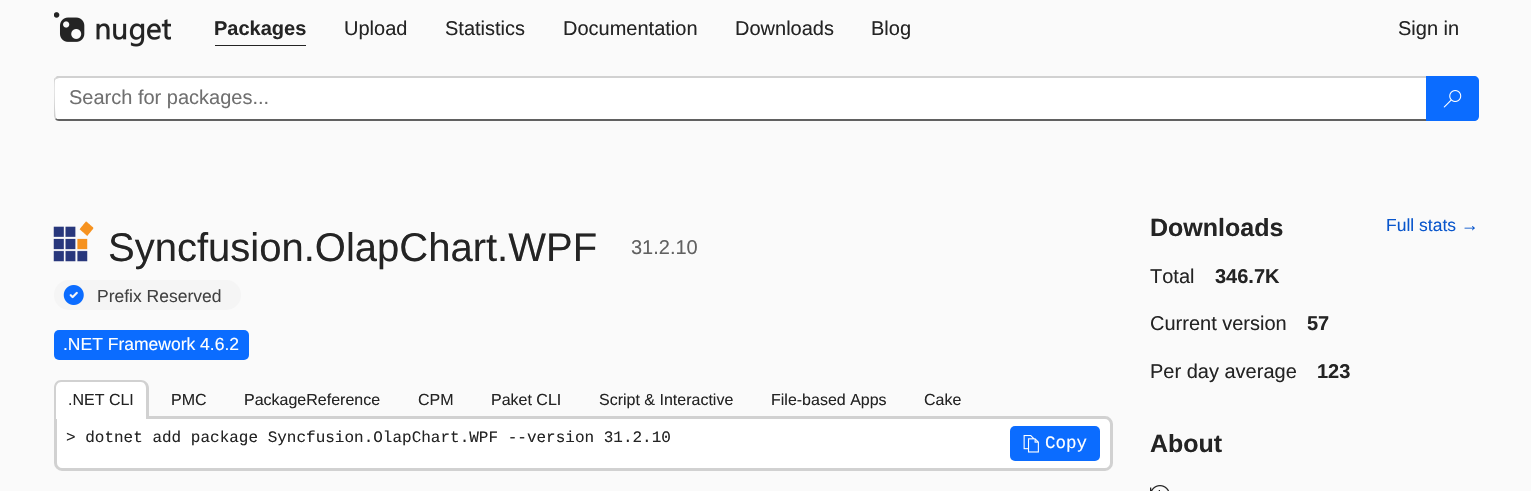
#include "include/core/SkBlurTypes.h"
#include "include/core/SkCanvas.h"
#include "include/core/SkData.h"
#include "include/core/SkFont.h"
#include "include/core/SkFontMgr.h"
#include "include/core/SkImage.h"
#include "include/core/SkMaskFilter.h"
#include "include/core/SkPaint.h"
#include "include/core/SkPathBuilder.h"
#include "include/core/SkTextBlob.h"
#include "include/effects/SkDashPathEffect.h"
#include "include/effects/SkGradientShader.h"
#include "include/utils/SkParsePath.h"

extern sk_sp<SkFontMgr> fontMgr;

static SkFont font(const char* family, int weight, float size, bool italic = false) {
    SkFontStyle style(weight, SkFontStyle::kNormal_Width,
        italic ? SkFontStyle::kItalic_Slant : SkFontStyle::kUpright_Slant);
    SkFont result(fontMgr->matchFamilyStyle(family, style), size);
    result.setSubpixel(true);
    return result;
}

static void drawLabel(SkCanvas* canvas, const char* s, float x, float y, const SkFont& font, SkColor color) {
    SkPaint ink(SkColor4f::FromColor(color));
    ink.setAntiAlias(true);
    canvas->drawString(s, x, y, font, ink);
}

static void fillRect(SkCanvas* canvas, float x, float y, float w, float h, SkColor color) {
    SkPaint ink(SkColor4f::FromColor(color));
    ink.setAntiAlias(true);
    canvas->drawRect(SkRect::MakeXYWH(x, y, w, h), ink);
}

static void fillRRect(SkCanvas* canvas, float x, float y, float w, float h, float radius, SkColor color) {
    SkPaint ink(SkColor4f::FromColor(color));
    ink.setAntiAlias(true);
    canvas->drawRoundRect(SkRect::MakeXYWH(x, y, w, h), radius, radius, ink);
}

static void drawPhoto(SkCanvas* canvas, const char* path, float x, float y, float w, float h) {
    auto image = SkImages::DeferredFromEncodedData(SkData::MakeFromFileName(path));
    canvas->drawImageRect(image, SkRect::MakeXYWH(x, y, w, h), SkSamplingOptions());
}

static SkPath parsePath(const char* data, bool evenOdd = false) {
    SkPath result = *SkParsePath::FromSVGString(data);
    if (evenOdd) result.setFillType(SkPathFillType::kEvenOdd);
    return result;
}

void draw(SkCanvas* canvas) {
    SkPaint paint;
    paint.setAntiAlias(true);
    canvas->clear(0xFFFAFAFA);
    drawPhoto(canvas, "assets/img1.png", 54, 12, 117, 35);
    SkFont font1 = font("Liberation Sans", 700, 20);
    drawLabel(canvas, "Packages", 214, 35, font1, 0xFF242424);
    fillRect(canvas, 215, 45, 91, 1, 0xFF242424);
    SkFont font2 = font("Liberation Sans", 400, 20);
    drawLabel(canvas, "Upload", 344, 35, font2, 0xFF242424);
    drawLabel(canvas, "Statistics", 445, 35, font2, 0xFF242424);
    drawLabel(canvas, "Documentation", 563, 35, font2, 0xFF242424);
    drawLabel(canvas, "Downloads", 735, 35, font2, 0xFF242424);
    drawLabel(canvas, "Blog", 871, 35, font2, 0xFF242424);
    drawLabel(canvas, "Sign in", 1398, 35, font2, 0xFF242424);
    paint.setColor(0xFFFFFFFF);
    canvas->drawPath(parsePath("M59 78H1426V119H59C57 119 55 118 55 116V81C55 79 57 78 59 78Z"), paint);
    paint.setColor(0xFFD1D1D1);
    canvas->drawPath(parsePath("M59 78L56 79L55 78L57 76H1428L1426 78Z"), paint);
    paint.setColor(0xFF616161);
    canvas->drawPath(parsePath("M1427 121H59C57 121 56 120 55 119L56 118C56 119 58 119 59 119H1426V118Z"), paint);
    paint.setColor(0xFFD1D1D1);
    canvas->drawPath(parsePath("M55 119L54 116V81C54 80 54 78 55 78L56 79L55 80C54 83 55 116 56 118Z"), paint);
    drawLabel(canvas, "Search for packages...", 69, 104, font2, 0xFF707070);
    paint.setColor(0xFF0B6CFF);
    canvas->drawPath(parsePath("M1426 76H1474C1477 76 1479 78 1479 81V116C1479 119 1477 121 1474 121H1426Z"), paint);
    drawPhoto(canvas, "assets/img2.png", 1443, 90, 19, 18);
    drawPhoto(canvas, "assets/img3.png", 53, 221, 41, 41);
    SkFont font3 = font("Liberation Sans", 400, 40);
    drawLabel(canvas, "Syncfusion.OlapChart.WPF", 108, 261, font3, 0xFF242424);
    drawLabel(canvas, "31.2.10", 631, 254, font2, 0xFF616161);
    fillRRect(canvas, 54, 280, 187, 30, 15, 0xFFF5F5F5);
    drawPhoto(canvas, "assets/img4.png", 63, 285, 21, 20);
    SkFont font4 = font("Liberation Sans", 400, 17.5f);
    drawLabel(canvas, "Prefix Reserved", 97, 302, font4, 0xFF424242);
    fillRRect(canvas, 54, 330, 195, 30, 5, 0xFF0B6CFF);
    drawLabel(canvas, ".NET Framework 4.6.2", 63, 350, font4, 0xFFFFFFFF);
    paint.setColor(0xFFFFFFFF);
    canvas->drawPath(parsePath("M55.5 417.5H1105C1108.5 417.5 1111.5 420.5 1111.5 424V463C1111.5 466.5 1108.5 469.5 1105 469.5H62C58.5 469.5 55.5 466.5 55.5 463Z"), paint);
    paint.setStroke(true);
    paint.setStrokeWidth(3);
    paint.setColor(0xFFD1D1D1);
    canvas->drawPath(parsePath("M55.5 417.5H1105C1108.5 417.5 1111.5 420.5 1111.5 424V463C1111.5 466.5 1108.5 469.5 1105 469.5H62C58.5 469.5 55.5 466.5 55.5 463Z"), paint);
    paint.setStroke(false);
    paint.setColor(0xFFFFFFFF);
    canvas->drawPath(parsePath("M62 380H141C145.5 380 149 383.5 149 388V419H54V388C54 383.5 57.5 380 62 380Z"), paint);
    paint.setColor(0xFFD1D1D1);
    canvas->drawPath(parsePath("M61 380H141C145 380 149 383 149 388V419H54V388C54 383 57 380 61 380ZM61 382H141C144 382 146 385 146 388V419H56V388C56 385 58 382 61 382Z", true), paint);
    SkFont font5 = font("Liberation Sans", 400, 16);
    drawLabel(canvas, ".NET CLI", 68, 405, font5, 0xFF242424);
    drawLabel(canvas, "PMC", 171, 405, font5, 0xFF242424);
    drawLabel(canvas, "PackageReference", 244, 405, font5, 0xFF242424);
    drawLabel(canvas, "CPM", 418, 405, font5, 0xFF242424);
    drawLabel(canvas, "Paket CLI", 491, 405, font5, 0xFF242424);
    drawLabel(canvas, "Script & Interactive", 599, 405, font5, 0xFF242424);
    drawLabel(canvas, "File-based Apps", 771, 405, font5, 0xFF242424);
    drawLabel(canvas, "Cake", 924, 405, font5, 0xFF242424);
    SkFont font6 = font("Liberation Mono", 400, 16);
    drawLabel(canvas, "> dotnet add package Syncfusion.OlapChart.WPF --version 31.2.10", 66, 442, font6, 0xFF242424);
    fillRRect(canvas, 1010, 426, 90, 35, 5, 0xFF0B6CFF);
    drawPhoto(canvas, "assets/img5.png", 1023, 435, 16, 18);
    SkFont font7 = font("Liberation Mono", 400, 17.5f);
    drawLabel(canvas, "Copy", 1045, 448, font7, 0xFFFFFFFF);
    SkFont font8 = font("Liberation Sans", 700, 25);
    drawLabel(canvas, "Downloads", 1150, 236, font8, 0xFF242424);
    drawLabel(canvas, "Full stats →", 1386, 231, font4, 0xFF0956CC);
    drawLabel(canvas, "Total", 1150, 283, font2, 0xFF242424);
    drawLabel(canvas, "346.7K", 1215, 283, font1, 0xFF242424);
    drawLabel(canvas, "Current version", 1150, 330, font2, 0xFF242424);
    drawLabel(canvas, "57", 1307, 330, font1, 0xFF242424);
    drawLabel(canvas, "Per day average", 1150, 378, font2, 0xFF242424);
    drawLabel(canvas, "123", 1317, 378, font1, 0xFF242424);
    drawLabel(canvas, "About", 1150, 452, font8, 0xFF242424);
    drawPhoto(canvas, "assets/img6.png", 1150, 485, 20, 6);
}
